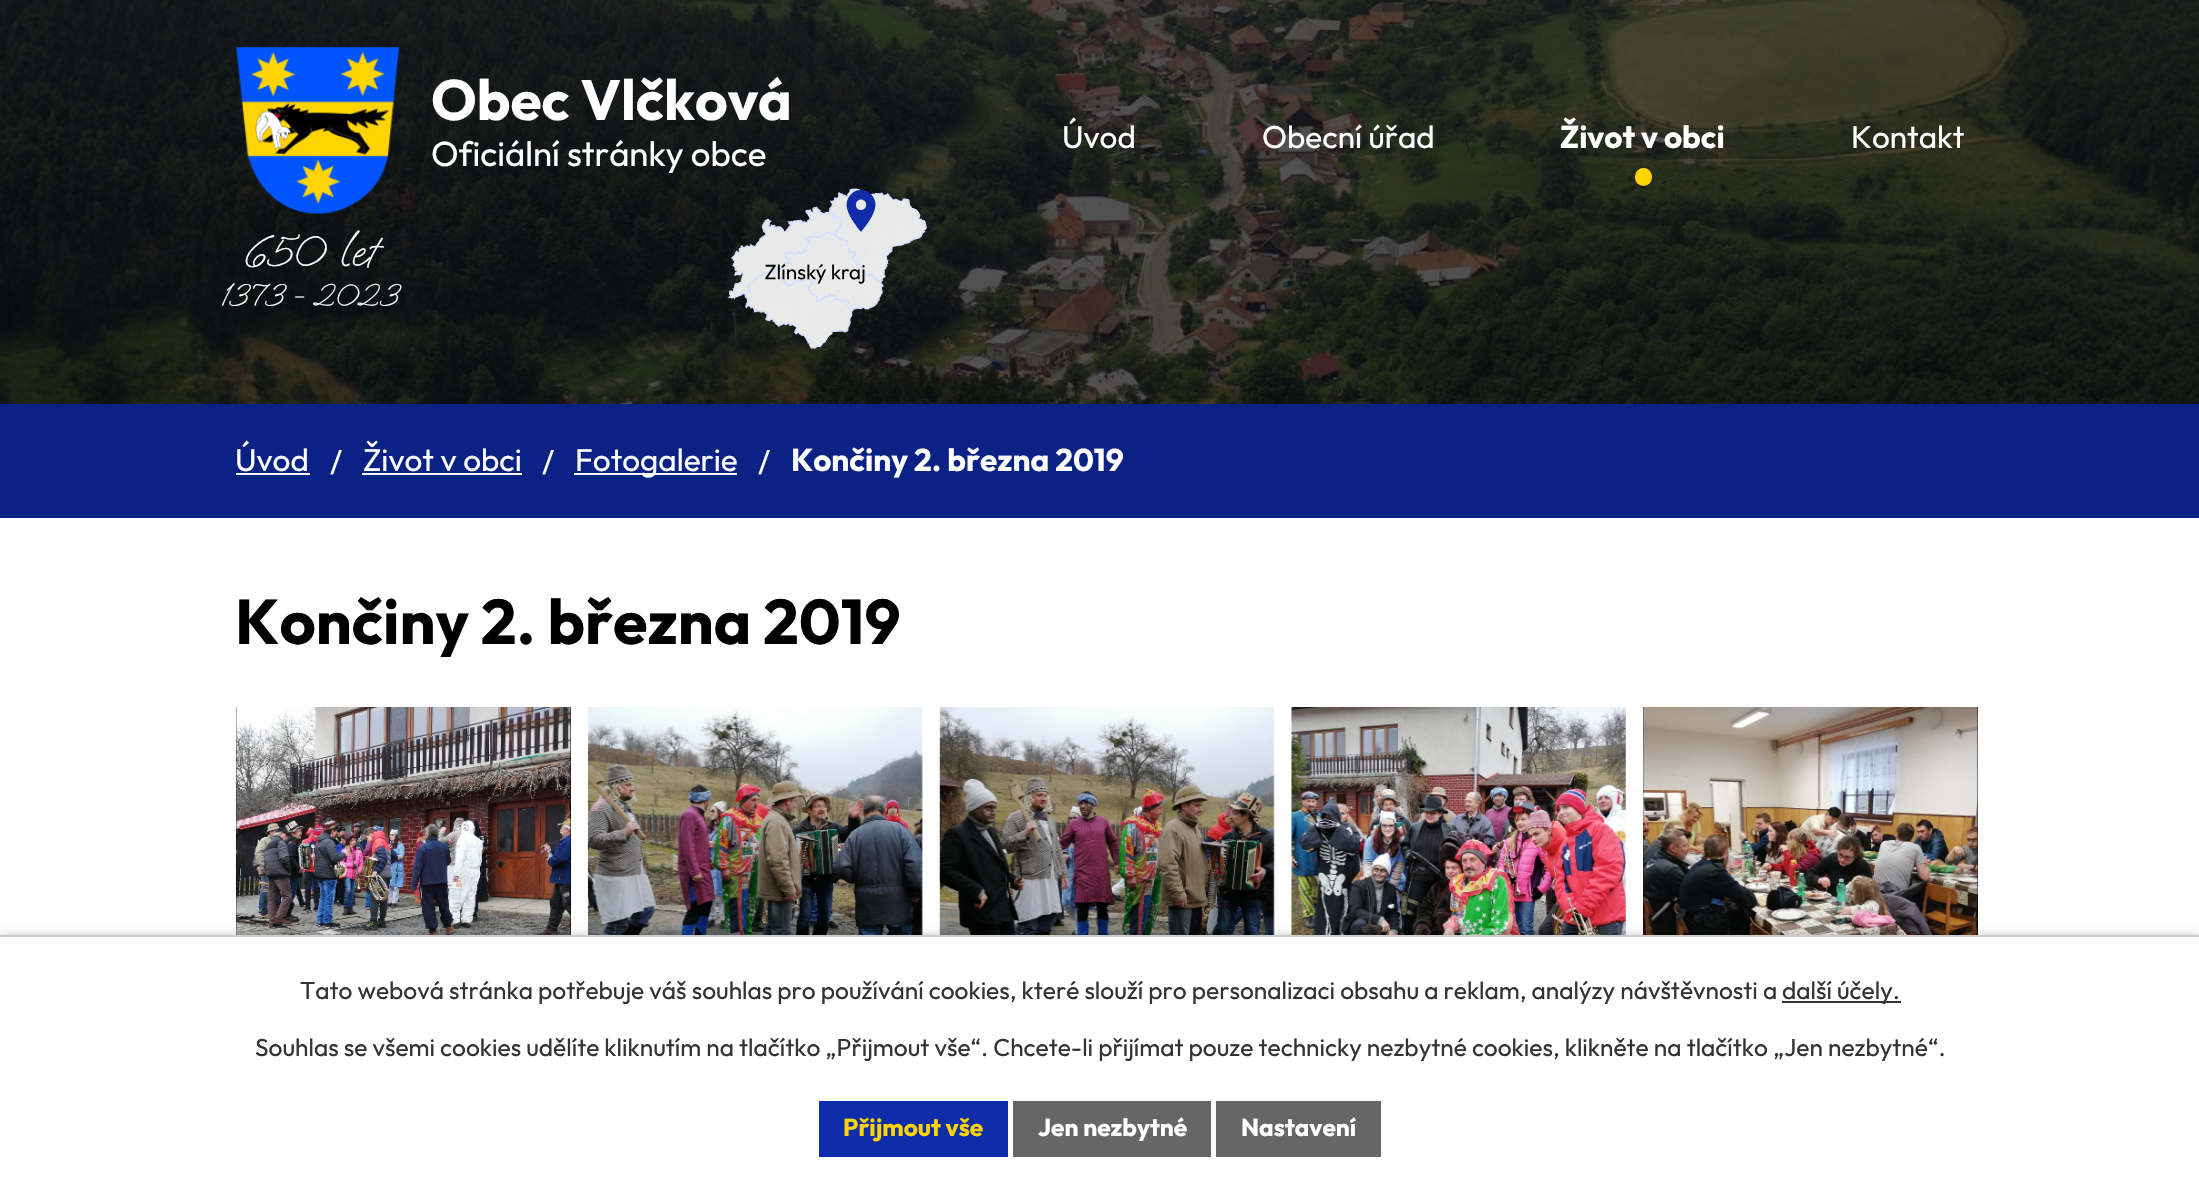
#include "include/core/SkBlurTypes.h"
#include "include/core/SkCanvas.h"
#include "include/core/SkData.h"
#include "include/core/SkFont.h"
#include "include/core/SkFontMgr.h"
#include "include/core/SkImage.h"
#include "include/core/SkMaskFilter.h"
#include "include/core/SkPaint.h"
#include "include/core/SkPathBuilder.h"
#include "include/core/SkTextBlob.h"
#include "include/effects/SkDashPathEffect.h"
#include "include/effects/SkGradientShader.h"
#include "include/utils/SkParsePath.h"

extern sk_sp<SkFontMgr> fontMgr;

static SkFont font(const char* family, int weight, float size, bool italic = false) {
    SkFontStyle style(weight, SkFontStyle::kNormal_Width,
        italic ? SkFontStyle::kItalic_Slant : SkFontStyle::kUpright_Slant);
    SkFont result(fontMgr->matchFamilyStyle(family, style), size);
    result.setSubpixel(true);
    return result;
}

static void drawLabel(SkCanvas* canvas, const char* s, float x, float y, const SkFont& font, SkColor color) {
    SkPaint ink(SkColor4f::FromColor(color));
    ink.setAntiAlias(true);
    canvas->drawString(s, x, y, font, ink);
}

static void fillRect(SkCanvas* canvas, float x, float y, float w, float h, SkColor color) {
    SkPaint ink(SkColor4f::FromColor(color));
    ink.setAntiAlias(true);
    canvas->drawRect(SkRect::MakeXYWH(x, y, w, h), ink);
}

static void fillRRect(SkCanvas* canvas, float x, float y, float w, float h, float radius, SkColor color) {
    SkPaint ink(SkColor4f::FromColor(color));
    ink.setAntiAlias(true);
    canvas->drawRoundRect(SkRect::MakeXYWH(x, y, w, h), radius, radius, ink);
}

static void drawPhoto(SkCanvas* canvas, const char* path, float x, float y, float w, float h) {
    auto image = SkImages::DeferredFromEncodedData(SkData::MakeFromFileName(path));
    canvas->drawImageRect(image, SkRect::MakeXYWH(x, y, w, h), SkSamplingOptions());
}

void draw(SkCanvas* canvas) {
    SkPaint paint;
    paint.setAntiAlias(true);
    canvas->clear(0xFFFFFFFF);
    drawPhoto(canvas, "assets/img1.png", 0, 0, 2199, 404);
    SkFont font1 = font("Outfit", 700, 56.75f);
    drawLabel(canvas, "Obec Vlčková", 431, 120, font1, 0xFFFFFFFF);
    SkFont font2 = font("Outfit", 400, 34.75f);
    drawLabel(canvas, "Oficiální stránky obce", 431, 166, font2, 0xFFFFFFFF);
    drawPhoto(canvas, "assets/img2.png", 236, 47, 163, 167);
    SkFont font3 = font("Oooh Baby", 400, 44);
    drawLabel(canvas, "650 let", 244, 265, font3, 0xFFFFFFFF);
    SkFont font4 = font("Oooh Baby", 400, 31.5f);
    drawLabel(canvas, "1373 - 2023", 221, 305, font4, 0xFFFFFFFF);
    drawPhoto(canvas, "assets/img3.png", 727, 188, 200, 161);
    SkFont font5 = font("Outfit", 400, 31.5f);
    drawLabel(canvas, "Úvod", 1062, 148, font5, 0xFFFFFFFF);
    drawLabel(canvas, "Obecní úřad", 1262, 148, font5, 0xFFFFFFFF);
    SkFont font6 = font("Outfit", 700, 31.5f);
    drawLabel(canvas, "Život v obci", 1560, 148, font6, 0xFFFFFFFF);
    fillRRect(canvas, 1635, 168, 17, 18, 8.5f, 0xFFFED403);
    drawLabel(canvas, "Kontakt", 1851, 148, font5, 0xFFFFFFFF);
    fillRect(canvas, 0, 404, 2199, 114, 0xFF092283);
    drawLabel(canvas, "Úvod", 235, 471, font5, 0xFFFFFFFF);
    fillRect(canvas, 236, 473, 74, 2, 0xFFFFFFFF);
    drawLabel(canvas, "/", 330, 473, font5, 0xFFFFFFFF);
    drawLabel(canvas, "Život v obci", 363, 471, font5, 0xFFFFFFFF);
    fillRect(canvas, 362, 473, 160, 2, 0xFFFFFFFF);
    drawLabel(canvas, "/", 542, 473, font5, 0xFFFFFFFF);
    fillRect(canvas, 574, 473, 163, 2, 0xFFFFFFFF);
    drawLabel(canvas, "Fotogalerie", 575, 471, font5, 0xFFFFFFFF);
    drawLabel(canvas, "/", 758, 473, font5, 0xFFFFFFFF);
    drawLabel(canvas, "Končiny 2. března 2019", 791, 471, font6, 0xFFFFFFFF);
    SkFont font7 = font("Outfit", 700, 63);
    drawLabel(canvas, "Končiny 2. března 2019", 235, 644, font7, 0xFF000000);
    fillRect(canvas, 236, 707, 335, 228, 0xFF000000);
    drawPhoto(canvas, "assets/img4.png", 235, 707, 336, 228);
    drawPhoto(canvas, "assets/img5.png", 587, 707, 336, 228);
    drawPhoto(canvas, "assets/img6.png", 939, 707, 336, 228);
    drawPhoto(canvas, "assets/img7.png", 1291, 707, 335, 228);
    fillRect(canvas, 1643, 707, 335, 228, 0xFF000000);
    drawPhoto(canvas, "assets/img8.png", 1643, 707, 335, 228);
    paint.setColor(0x33000000);
    paint.setMaskFilter(SkMaskFilter::MakeBlur(kNormal_SkBlurStyle, 4.5f));
    canvas->drawRect(SkRect::MakeXYWH(0, 935, 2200, 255), paint);
    paint.setMaskFilter(nullptr);
    fillRect(canvas, 0, 937, 2199, 252, 0xFFFFFFFF);
    fillRect(canvas, 0, 935, 2199, 2, 0xFFCCCCCC);
    SkFont font8 = font("Outfit", 400, 24.5f);
    drawLabel(canvas, "Tato webová stránka potřebuje váš souhlas pro používání cookies, které slouží pro personalizaci obsahu a reklam, analýzy návštěvnosti a", 300, 999, font8, 0xFF333333);
    fillRect(canvas, 1782, 1001, 119, 2, 0xFF333333);
    drawLabel(canvas, "další účely.", 1782, 999, font8, 0xFF333333);
    drawLabel(canvas, "Souhlas se všemi cookies udělíte kliknutím na tlačítko „Přijmout vše“. Chcete-li přijímat pouze technicky nezbytné cookies, klikněte na tlačítko „Jen nezbytné“.", 255, 1056, font8, 0xFF333333);
    fillRect(canvas, 819, 1101, 189, 56, 0xFF0F2DA9);
    SkFont font9 = font("Outfit", 700, 24.5f);
    drawLabel(canvas, "Přijmout vše", 843, 1136, font9, 0xFFFED403);
    fillRect(canvas, 1013, 1101, 198, 56, 0xFF666666);
    drawLabel(canvas, "Jen nezbytné", 1038, 1136, font9, 0xFFFFFFFF);
    fillRect(canvas, 1216, 1101, 165, 56, 0xFF666666);
    drawLabel(canvas, "Nastavení", 1241, 1136, font9, 0xFFFFFFFF);
}
